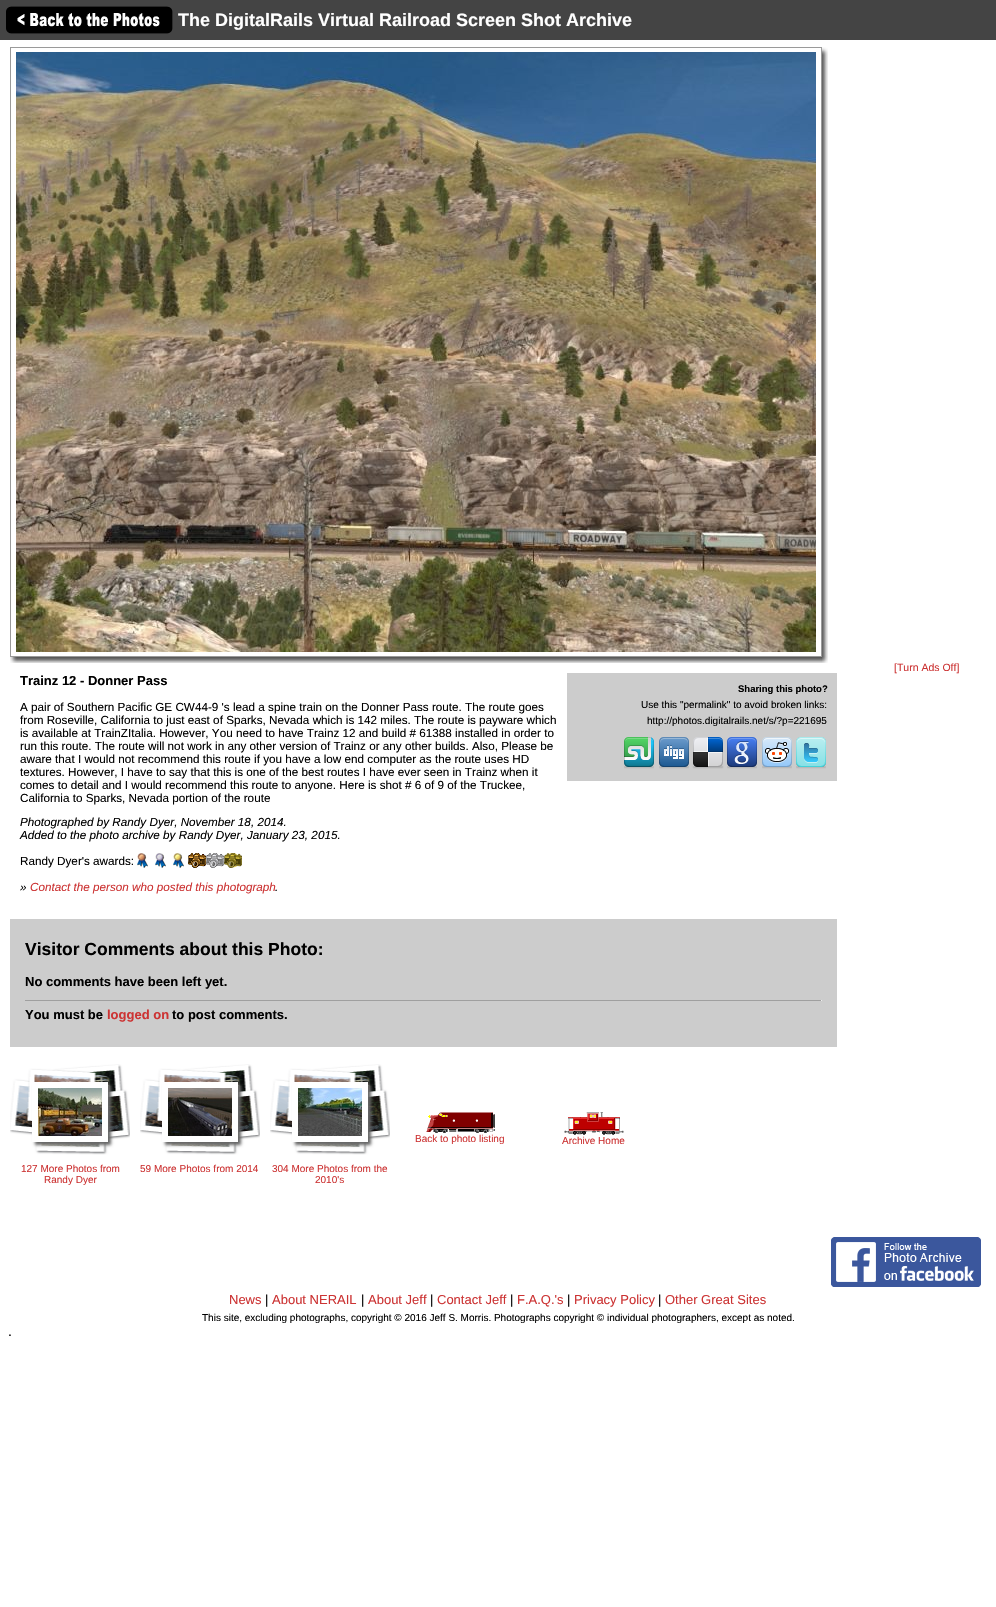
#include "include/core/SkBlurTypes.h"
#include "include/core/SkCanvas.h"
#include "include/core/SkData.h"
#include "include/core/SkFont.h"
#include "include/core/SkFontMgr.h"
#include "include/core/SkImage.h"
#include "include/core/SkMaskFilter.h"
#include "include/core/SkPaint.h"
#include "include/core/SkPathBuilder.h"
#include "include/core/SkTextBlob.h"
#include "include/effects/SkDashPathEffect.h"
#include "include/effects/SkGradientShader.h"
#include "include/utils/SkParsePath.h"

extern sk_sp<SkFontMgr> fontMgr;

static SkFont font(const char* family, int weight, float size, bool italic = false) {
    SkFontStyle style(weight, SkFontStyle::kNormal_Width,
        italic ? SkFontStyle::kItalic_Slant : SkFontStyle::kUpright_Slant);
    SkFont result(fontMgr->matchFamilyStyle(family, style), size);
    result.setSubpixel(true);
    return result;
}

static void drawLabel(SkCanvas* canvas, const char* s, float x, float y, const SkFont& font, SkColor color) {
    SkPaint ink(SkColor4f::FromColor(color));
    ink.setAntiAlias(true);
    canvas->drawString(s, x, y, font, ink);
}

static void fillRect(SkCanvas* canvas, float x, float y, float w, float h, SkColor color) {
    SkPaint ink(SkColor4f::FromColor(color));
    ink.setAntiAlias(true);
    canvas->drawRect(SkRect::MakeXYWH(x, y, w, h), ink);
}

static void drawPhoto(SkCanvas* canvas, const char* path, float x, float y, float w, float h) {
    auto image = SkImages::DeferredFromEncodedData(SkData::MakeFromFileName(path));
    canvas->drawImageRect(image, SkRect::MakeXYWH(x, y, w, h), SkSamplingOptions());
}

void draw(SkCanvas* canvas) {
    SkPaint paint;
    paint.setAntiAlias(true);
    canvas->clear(0xFFFFFFFF);
    fillRect(canvas, 0, 0, 996, 40, 0xFF444444);
    drawPhoto(canvas, "assets/img1.png", 6, 6, 167, 28);
    SkFont font1 = font("Liberation Sans", 700, 18);
    drawLabel(canvas, "The DigitalRails Virtual Railroad Screen Shot Archive", 178, 26, font1, 0xFFFFFFFF);
    SkFont font2 = font("Liberation Sans", 400, 10.5f);
    drawLabel(canvas, "[Turn Ads Off]", 894, 671, font2, 0xFFCC3333);
    paint.setStroke(true);
    paint.setStrokeWidth(1);
    paint.setColor(0xFF9A9A9A);
    canvas->drawRect(SkRect::MakeXYWH(10.5f, 47.5f, 811, 609), paint);
    drawPhoto(canvas, "assets/img2.png", 16, 52, 800, 600);
    drawPhoto(canvas, "assets/img3.png", 822, 47, 6, 610);
    drawPhoto(canvas, "assets/img4.png", 10, 657, 812, 6);
    drawPhoto(canvas, "assets/img5.png", 822, 657, 6, 6);
    SkFont font3 = font("Liberation Sans", 700, 13);
    drawLabel(canvas, "Trainz 12 - Donner Pass", 20, 685, font3, 0xFF000000);
    SkFont font4 = font("Liberation Sans", 400, 11.7f);
    drawLabel(canvas, "A pair of Southern Pacific GE CW44-9 's lead a spine train on the Donner Pass route. The route goes", 20, 711, font4, 0xFF000000);
    drawLabel(canvas, "from Roseville, California to just east of Sparks, Nevada which is 142 miles. The route is payware which", 20, 724, font4, 0xFF000000);
    drawLabel(canvas, "is available at TrainZItalia. However, You need to have Trainz 12 and build # 61388 installed in order to", 20, 737, font4, 0xFF000000);
    drawLabel(canvas, "run this route. The route will not work in any other version of Trainz or any other builds. Also, Please be", 20, 750, font4, 0xFF000000);
    drawLabel(canvas, "aware that I would not recommend this route if you have a low end computer as the route uses HD", 20, 763, font4, 0xFF000000);
    drawLabel(canvas, "textures. However, I have to say that this is one of the best routes I have ever seen in Trainz when it", 20, 776, font4, 0xFF000000);
    drawLabel(canvas, "comes to detail and I would recommend this route to anyone. Here is shot # 6 of 9 of the Truckee,", 20, 789, font4, 0xFF000000);
    drawLabel(canvas, "California to Sparks, Nevada portion of the route", 20, 802, font4, 0xFF000000);
    SkFont font5 = font("Liberation Sans", 400, 11.7f, true);
    drawLabel(canvas, "Photographed by Randy Dyer, November 18, 2014.", 20, 826, font5, 0xFF000000);
    drawLabel(canvas, "Added to the photo archive by Randy Dyer, January 23, 2015.", 20, 839, font5, 0xFF000000);
    drawLabel(canvas, "Randy Dyer's awards:", 20, 865, font4, 0xFF000000);
    drawPhoto(canvas, "assets/img6.png", 137, 853, 11, 15);
    drawPhoto(canvas, "assets/img7.png", 155, 853, 11, 15);
    drawPhoto(canvas, "assets/img8.png", 173, 853, 11, 15);
    drawPhoto(canvas, "assets/img9.png", 188, 853, 18, 15);
    drawPhoto(canvas, "assets/img10.png", 206, 853, 18, 15);
    drawPhoto(canvas, "assets/img11.png", 224, 853, 18, 15);
    drawLabel(canvas, "»", 20, 891, font5, 0xFF000000);
    drawLabel(canvas, "Contact the person who posted this photograph", 30, 891, font5, 0xFFCC3333);
    drawLabel(canvas, ".", 275, 891, font5, 0xFF000000);
    fillRect(canvas, 567, 673, 270, 108, 0xFFCCCCCC);
    SkFont font6 = font("Liberation Sans", 700, 9.5f);
    drawLabel(canvas, "Sharing this photo?", 738, 692, font6, 0xFF000000);
    SkFont font7 = font("Liberation Sans", 400, 10);
    drawLabel(canvas, "Use this \"permalink\" to avoid broken links:", 641, 708, font7, 0xFF000000);
    drawLabel(canvas, "http://photos.digitalrails.net/s/?p=221695", 647, 724, font7, 0xFF000000);
    drawPhoto(canvas, "assets/img12.png", 624, 737, 30, 32);
    drawPhoto(canvas, "assets/img13.png", 659, 737, 30, 32);
    drawPhoto(canvas, "assets/img14.png", 692, 737, 32, 32);
    drawPhoto(canvas, "assets/img15.png", 727, 737, 30, 32);
    drawPhoto(canvas, "assets/img16.png", 762, 737, 30, 32);
    drawPhoto(canvas, "assets/img17.png", 796, 737, 30, 32);
    fillRect(canvas, 10, 919, 827, 128, 0xFFCCCCCC);
    SkFont font8 = font("Liberation Sans", 700, 17.5f);
    drawLabel(canvas, "Visitor Comments about this Photo:", 25, 955, font8, 0xFF000000);
    drawLabel(canvas, "No comments have been left yet.", 25, 986, font3, 0xFF000000);
    fillRect(canvas, 25, 1000, 797, 1, 0xFF9F9F9F);
    fillRect(canvas, 821, 1000, 1, 1, 0xFFEEEEEE);
    drawLabel(canvas, "You must be", 25, 1019, font3, 0xFF000000);
    drawLabel(canvas, "logged on", 107, 1019, font3, 0xFFCC3333);
    drawLabel(canvas, "to post comments.", 172, 1019, font3, 0xFF000000);
    drawPhoto(canvas, "assets/img18.png", 426, 1112, 69, 21);
    drawLabel(canvas, "Back to photo listing", 415, 1142, font7, 0xFFCC3333);
    drawPhoto(canvas, "assets/img19.png", 564, 1112, 60, 23);
    drawLabel(canvas, "Archive Home", 562, 1144, font7, 0xFFCC3333);
    drawPhoto(canvas, "assets/img20.png", 10, 1064, 120, 91);
    paint.setStroke(false);
    paint.setColor(0xFF666666);
    paint.setMaskFilter(SkMaskFilter::MakeBlur(kNormal_SkBlurStyle, 1.5f));
    canvas->drawRect(SkRect::MakeXYWH(35, 1085, 76, 60), paint);
    paint.setMaskFilter(nullptr);
    fillRect(canvas, 32, 1082, 76, 60, 0xFFFFFFFF);
    drawPhoto(canvas, "assets/img21.png", 38, 1088, 64, 48);
    drawLabel(canvas, "127 More Photos from", 21, 1172, font7, 0xFFCC3333);
    drawLabel(canvas, "Randy Dyer", 44, 1183, font7, 0xFFCC3333);
    drawPhoto(canvas, "assets/img20.png", 140, 1064, 120, 91);
    paint.setMaskFilter(SkMaskFilter::MakeBlur(kNormal_SkBlurStyle, 1.5f));
    canvas->drawRect(SkRect::MakeXYWH(165, 1085, 76, 60), paint);
    paint.setMaskFilter(nullptr);
    fillRect(canvas, 162, 1082, 76, 60, 0xFFFFFFFF);
    drawPhoto(canvas, "assets/img22.png", 168, 1088, 64, 48);
    drawLabel(canvas, "59 More Photos from 2014", 140, 1172, font7, 0xFFCC3333);
    drawPhoto(canvas, "assets/img20.png", 270, 1064, 120, 91);
    paint.setMaskFilter(SkMaskFilter::MakeBlur(kNormal_SkBlurStyle, 1.5f));
    canvas->drawRect(SkRect::MakeXYWH(295, 1085, 76, 60), paint);
    paint.setMaskFilter(nullptr);
    fillRect(canvas, 292, 1082, 76, 60, 0xFFFFFFFF);
    drawPhoto(canvas, "assets/img23.png", 298, 1088, 64, 48);
    drawLabel(canvas, "304 More Photos from the", 272, 1172, font7, 0xFFCC3333);
    drawLabel(canvas, "2010's", 315, 1183, font7, 0xFFCC3333);
    drawPhoto(canvas, "assets/img24.png", 831, 1237, 150, 50);
    SkFont font9 = font("Liberation Sans", 400, 13);
    drawLabel(canvas, "News", 229, 1304, font9, 0xFFCC3333);
    drawLabel(canvas, "|", 265, 1304, font9, 0xFF000000);
    drawLabel(canvas, "About NERAIL", 272, 1304, font9, 0xFFCC3333);
    drawLabel(canvas, "|", 361, 1304, font9, 0xFF000000);
    drawLabel(canvas, "About Jeff", 368, 1304, font9, 0xFFCC3333);
    drawLabel(canvas, "|", 430, 1304, font9, 0xFF000000);
    drawLabel(canvas, "Contact Jeff", 437, 1304, font9, 0xFFCC3333);
    drawLabel(canvas, "|", 510, 1304, font9, 0xFF000000);
    drawLabel(canvas, "F.A.Q.'s", 517, 1304, font9, 0xFFCC3333);
    drawLabel(canvas, "|", 567, 1304, font9, 0xFF000000);
    drawLabel(canvas, "Privacy Policy", 574, 1304, font9, 0xFFCC3333);
    drawLabel(canvas, "|", 658, 1304, font9, 0xFF000000);
    drawLabel(canvas, "Other Great Sites", 665, 1304, font9, 0xFFCC3333);
    drawLabel(canvas, "This site, excluding photographs, copyright © 2016 Jeff S. Morris. Photographs copyright © individual photographers, except as noted.", 202, 1321, font7, 0xFF000000);
    SkFont font10 = font("Liberation Sans", 400, 14);
    drawLabel(canvas, ".", 8, 1336, font10, 0xFF000000);
}
